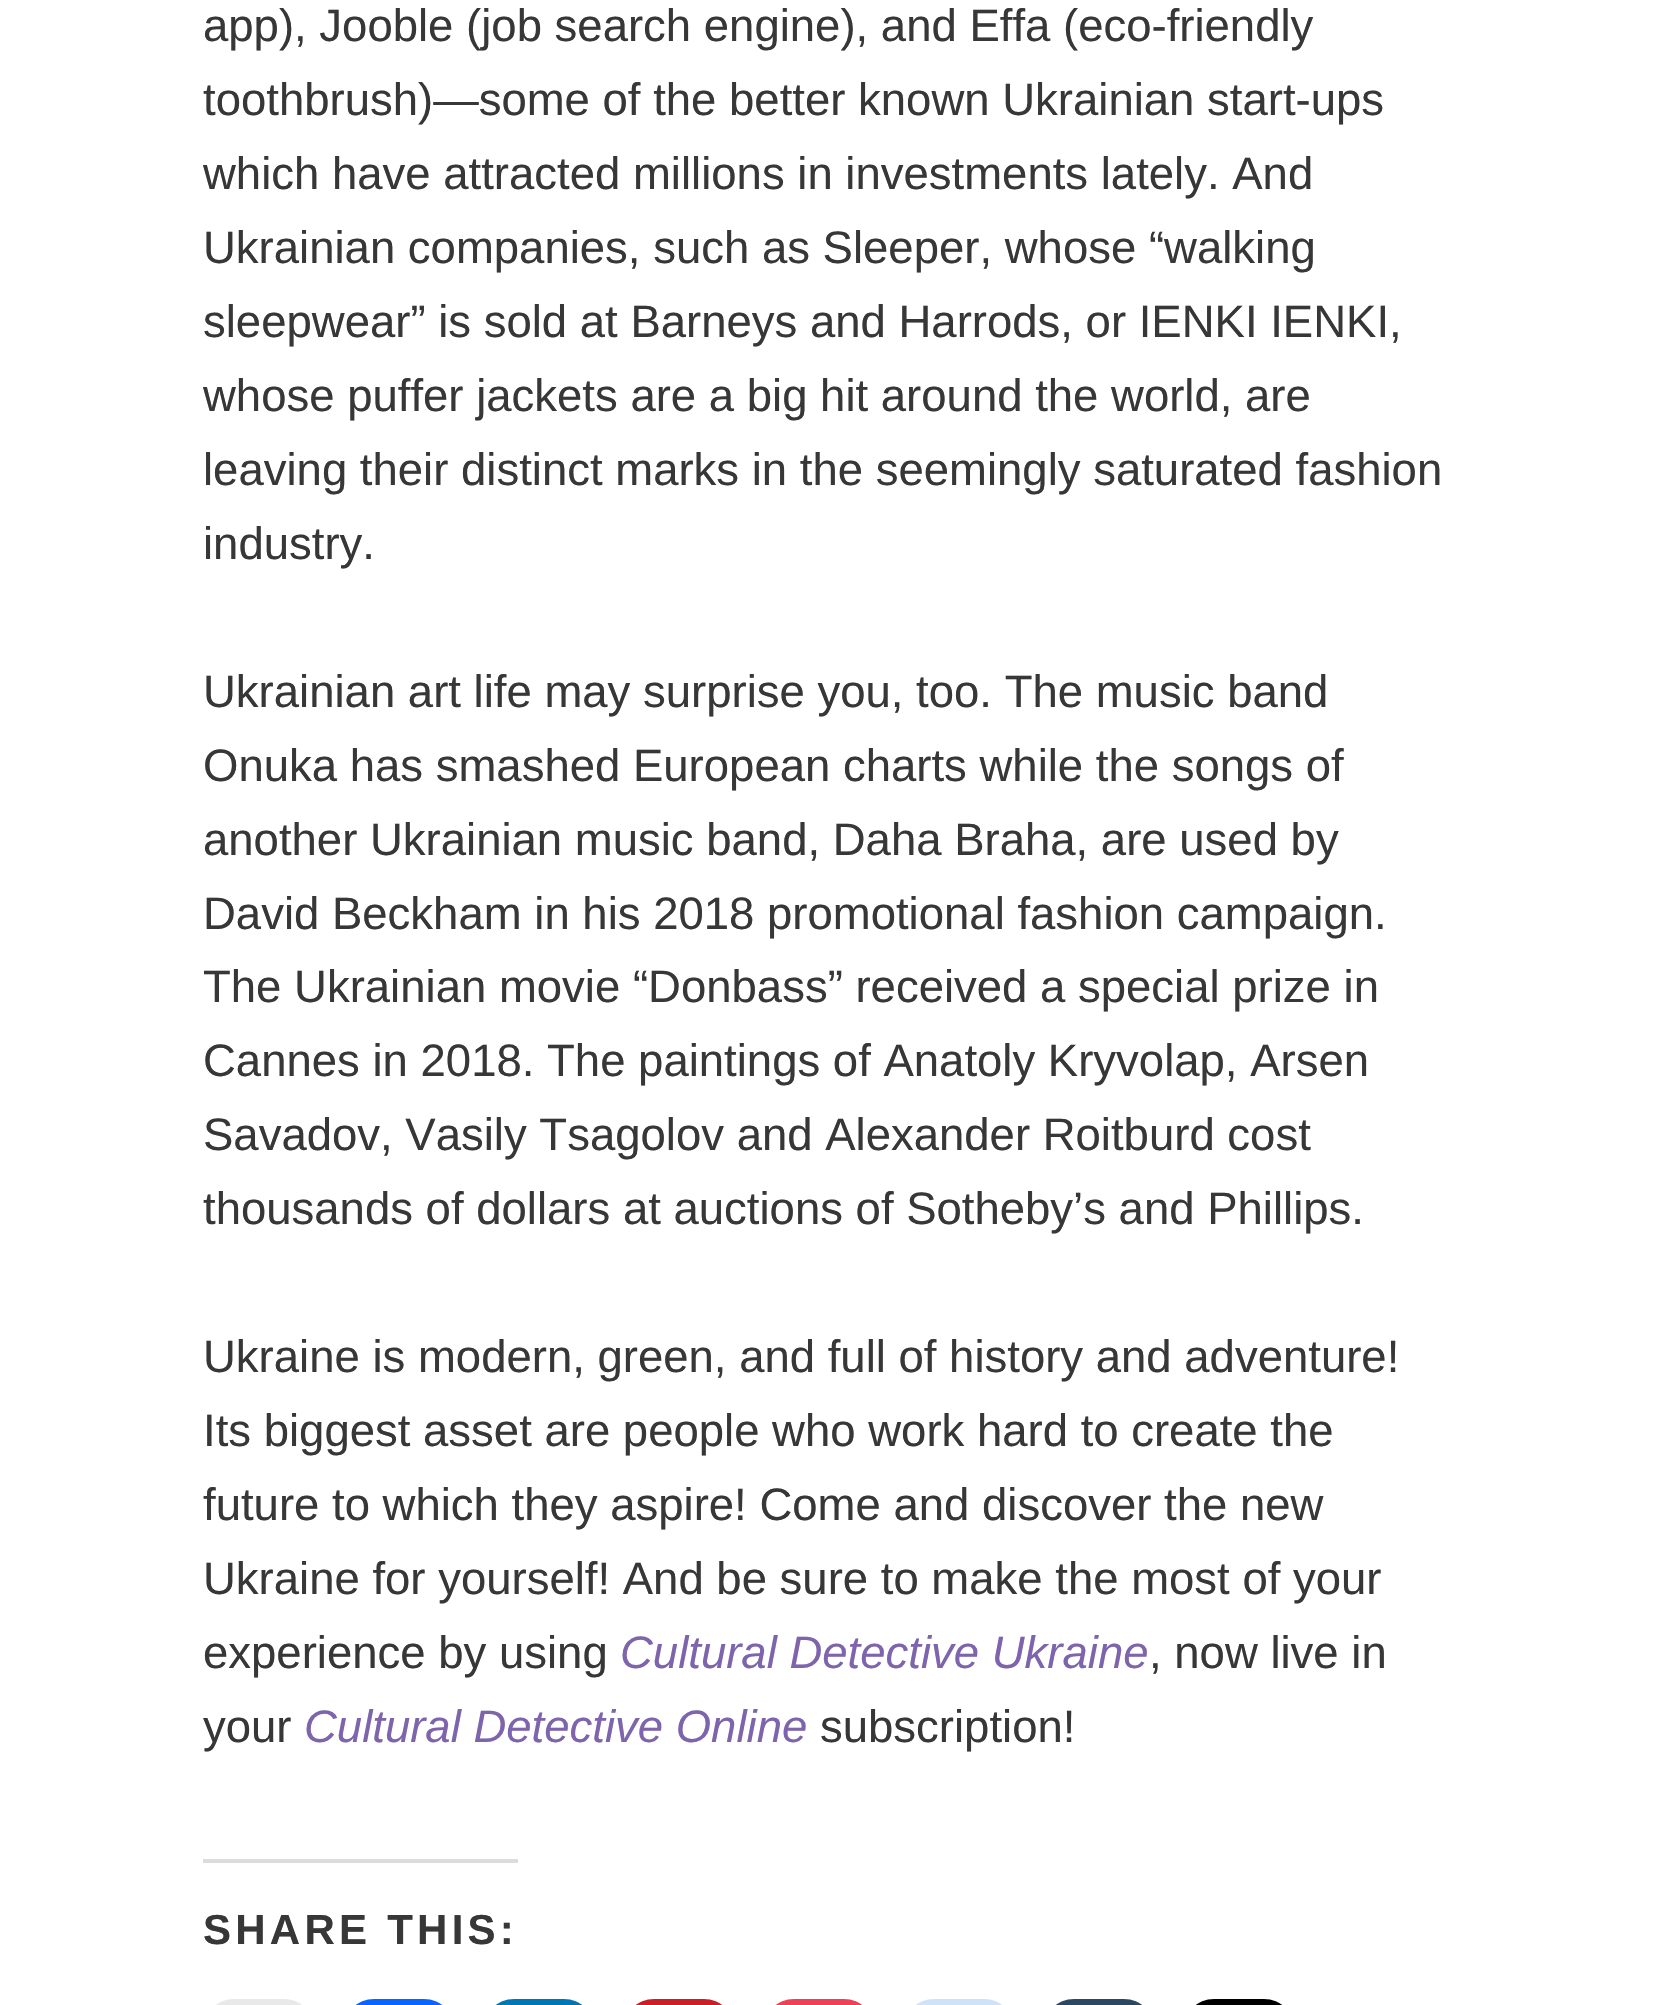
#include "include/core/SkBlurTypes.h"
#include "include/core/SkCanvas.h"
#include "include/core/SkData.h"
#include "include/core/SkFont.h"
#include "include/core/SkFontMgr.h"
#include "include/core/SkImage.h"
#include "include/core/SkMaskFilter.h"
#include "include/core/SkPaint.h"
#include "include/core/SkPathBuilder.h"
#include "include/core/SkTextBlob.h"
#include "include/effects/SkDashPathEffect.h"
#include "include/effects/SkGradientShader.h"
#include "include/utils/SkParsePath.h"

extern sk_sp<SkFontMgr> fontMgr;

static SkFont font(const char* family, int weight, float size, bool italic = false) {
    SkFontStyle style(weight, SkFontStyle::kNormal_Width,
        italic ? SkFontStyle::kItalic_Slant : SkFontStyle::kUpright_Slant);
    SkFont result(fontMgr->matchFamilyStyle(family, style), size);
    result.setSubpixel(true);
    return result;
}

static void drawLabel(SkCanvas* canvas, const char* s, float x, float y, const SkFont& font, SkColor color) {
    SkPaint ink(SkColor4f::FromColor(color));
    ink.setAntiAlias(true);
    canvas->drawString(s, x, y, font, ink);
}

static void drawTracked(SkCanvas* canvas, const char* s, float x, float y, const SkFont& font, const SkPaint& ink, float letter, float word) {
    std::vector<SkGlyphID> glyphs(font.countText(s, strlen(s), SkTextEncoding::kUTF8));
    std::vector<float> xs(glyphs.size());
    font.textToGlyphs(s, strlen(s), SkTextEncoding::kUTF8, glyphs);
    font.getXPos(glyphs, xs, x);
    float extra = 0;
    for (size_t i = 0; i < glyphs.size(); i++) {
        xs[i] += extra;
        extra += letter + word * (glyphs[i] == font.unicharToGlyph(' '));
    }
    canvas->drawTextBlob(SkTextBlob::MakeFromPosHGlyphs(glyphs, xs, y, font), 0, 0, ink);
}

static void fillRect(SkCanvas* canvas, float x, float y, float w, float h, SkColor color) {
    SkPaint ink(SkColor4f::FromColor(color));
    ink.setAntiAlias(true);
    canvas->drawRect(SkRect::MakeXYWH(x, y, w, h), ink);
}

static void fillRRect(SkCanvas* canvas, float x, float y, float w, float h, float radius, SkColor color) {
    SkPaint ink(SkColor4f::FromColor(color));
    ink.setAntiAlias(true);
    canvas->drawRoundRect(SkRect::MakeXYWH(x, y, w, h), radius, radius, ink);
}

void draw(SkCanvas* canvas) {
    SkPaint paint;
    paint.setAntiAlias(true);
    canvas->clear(0xFFFFFFFF);
    SkFont font1 = font("Liberation Sans", 400, 45.5f);
    drawLabel(canvas, "app), Jooble (job search engine), and Effa (eco-friendly", 203, 41, font1, 0xFF373737);
    drawLabel(canvas, "toothbrush)—some of the better known Ukrainian start-ups", 203, 115, font1, 0xFF373737);
    drawLabel(canvas, "which have attracted millions in investments lately. And", 203, 189, font1, 0xFF373737);
    drawLabel(canvas, "Ukrainian companies, such as Sleeper, whose “walking", 203, 263, font1, 0xFF373737);
    drawLabel(canvas, "sleepwear” is sold at Barneys and Harrods, or IENKI IENKI,", 203, 337, font1, 0xFF373737);
    drawLabel(canvas, "whose puffer jackets are a big hit around the world, are", 203, 411, font1, 0xFF373737);
    drawLabel(canvas, "leaving their distinct marks in the seemingly saturated fashion", 203, 485, font1, 0xFF373737);
    drawLabel(canvas, "industry.", 203, 559, font1, 0xFF373737);
    drawLabel(canvas, "Ukrainian art life may surprise you, too. The music band", 203, 707, font1, 0xFF373737);
    drawLabel(canvas, "Onuka has smashed European charts while the songs of", 203, 781, font1, 0xFF373737);
    drawLabel(canvas, "another Ukrainian music band, Daha Braha, are used by", 203, 855, font1, 0xFF373737);
    drawLabel(canvas, "David Beckham in his 2018 promotional fashion campaign.", 203, 929, font1, 0xFF373737);
    drawLabel(canvas, "The Ukrainian movie “Donbass” received a special prize in", 203, 1002, font1, 0xFF373737);
    drawLabel(canvas, "Cannes in 2018. The paintings of Anatoly Kryvolap, Arsen", 203, 1076, font1, 0xFF373737);
    drawLabel(canvas, "Savadov, Vasily Tsagolov and Alexander Roitburd cost", 203, 1150, font1, 0xFF373737);
    drawLabel(canvas, "thousands of dollars at auctions of Sotheby’s and Phillips.", 203, 1224, font1, 0xFF373737);
    drawLabel(canvas, "Ukraine is modern, green, and full of history and adventure!", 203, 1372, font1, 0xFF373737);
    drawLabel(canvas, "Its biggest asset are people who work hard to create the", 203, 1446, font1, 0xFF373737);
    drawLabel(canvas, "future to which they aspire! Come and discover the new", 203, 1520, font1, 0xFF373737);
    drawLabel(canvas, "Ukraine for yourself! And be sure to make the most of your", 203, 1594, font1, 0xFF373737);
    drawLabel(canvas, "experience by using", 203, 1668, font1, 0xFF373737);
    SkFont font2 = font("Liberation Sans", 400, 45.5f, true);
    drawLabel(canvas, "Cultural Detective Ukraine", 620, 1668, font2, 0xFF7D64AC);
    drawLabel(canvas, ", now live in", 1149, 1668, font1, 0xFF373737);
    drawLabel(canvas, "your", 203, 1742, font1, 0xFF373737);
    drawLabel(canvas, "Cultural Detective Online", 304, 1742, font2, 0xFF7D64AC);
    drawLabel(canvas, "subscription!", 820, 1742, font1, 0xFF373737);
    fillRect(canvas, 203, 1859, 315, 4, 0xFFDCDCDE);
    SkFont font3 = font("Liberation Sans", 700, 42);
    paint.setColor(0xFF373737);
    drawTracked(canvas, "SHARE THIS:", 203, 1944, font3, paint, 4.25f, 0);
    fillRRect(canvas, 203, 1999, 112, 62, 56, 0xFFE9E9E9);
    fillRRect(canvas, 343, 1999, 112, 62, 56, 0xFF0866FF);
    fillRRect(canvas, 483, 1999, 112, 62, 56, 0xFF0077B5);
    fillRRect(canvas, 623, 1999, 112, 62, 56, 0xFFCA1F27);
    fillRRect(canvas, 763, 1999, 112, 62, 56, 0xFFEE4056);
    fillRRect(canvas, 903, 1999, 112, 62, 56, 0xFFCEE3F8);
    fillRRect(canvas, 1043, 1999, 112, 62, 56, 0xFF2C4762);
    fillRRect(canvas, 1183, 1999, 112, 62, 56, 0xFF000000);
}
